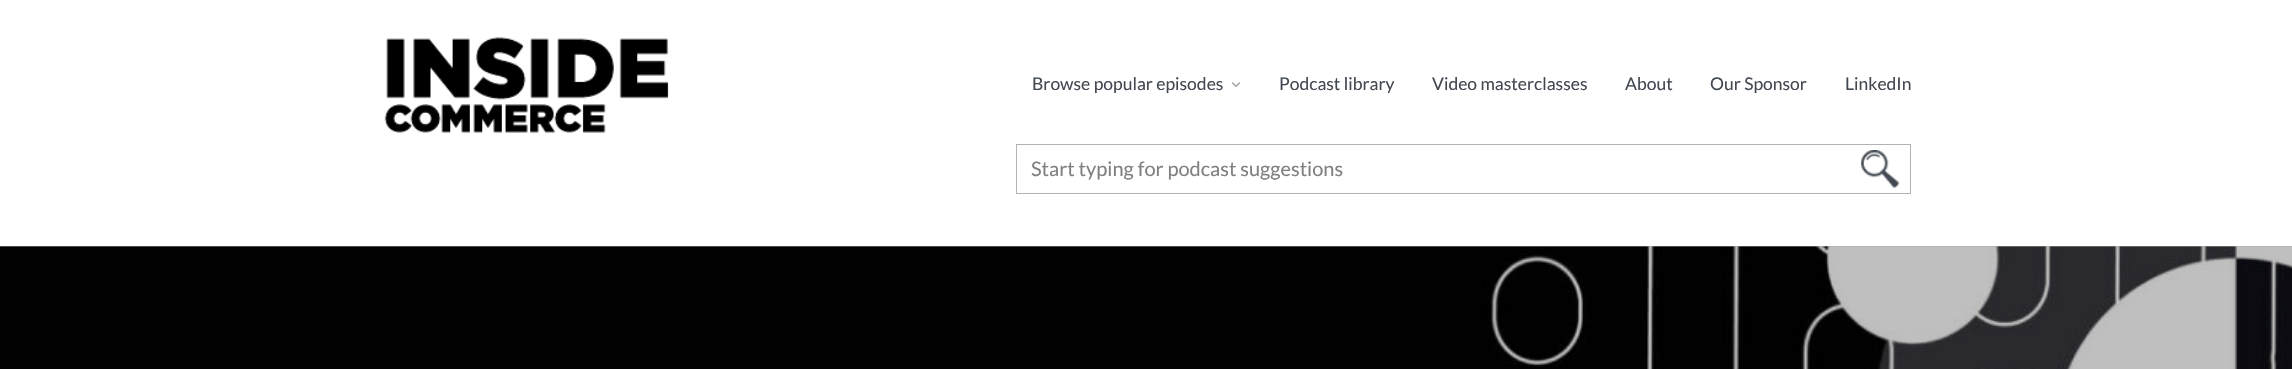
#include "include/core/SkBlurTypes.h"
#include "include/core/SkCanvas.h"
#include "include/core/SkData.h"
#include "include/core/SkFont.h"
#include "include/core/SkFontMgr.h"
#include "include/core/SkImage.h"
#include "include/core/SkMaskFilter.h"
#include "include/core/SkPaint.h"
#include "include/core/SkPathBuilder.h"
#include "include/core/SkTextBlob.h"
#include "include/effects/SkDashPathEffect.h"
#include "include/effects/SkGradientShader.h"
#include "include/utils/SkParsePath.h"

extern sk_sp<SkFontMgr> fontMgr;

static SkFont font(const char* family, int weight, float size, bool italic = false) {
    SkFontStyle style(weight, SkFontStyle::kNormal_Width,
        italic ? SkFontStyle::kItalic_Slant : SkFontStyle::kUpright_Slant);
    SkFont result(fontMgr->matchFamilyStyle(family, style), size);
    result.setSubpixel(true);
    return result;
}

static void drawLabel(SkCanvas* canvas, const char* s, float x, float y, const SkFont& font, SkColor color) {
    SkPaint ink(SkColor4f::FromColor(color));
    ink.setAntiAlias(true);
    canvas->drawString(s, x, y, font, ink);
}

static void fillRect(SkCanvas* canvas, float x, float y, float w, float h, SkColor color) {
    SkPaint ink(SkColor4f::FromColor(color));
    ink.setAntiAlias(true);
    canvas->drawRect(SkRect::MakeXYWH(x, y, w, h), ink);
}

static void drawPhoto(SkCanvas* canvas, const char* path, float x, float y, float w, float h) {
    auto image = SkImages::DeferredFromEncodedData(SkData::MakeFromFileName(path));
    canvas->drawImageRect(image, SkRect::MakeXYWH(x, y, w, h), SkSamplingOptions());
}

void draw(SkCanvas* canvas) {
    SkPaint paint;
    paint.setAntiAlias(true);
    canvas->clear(0xFFFFFFFF);
    drawPhoto(canvas, "assets/img1.png", 384, 37, 285, 96);
    SkFont font1 = font("Lato", 400, 17.5f);
    drawLabel(canvas, "Browse popular episodes", 1032, 90, font1, 0xFF424851);
    drawPhoto(canvas, "assets/img2.png", 1231, 82, 10, 6);
    drawLabel(canvas, "Podcast library", 1279, 90, font1, 0xFF424851);
    drawLabel(canvas, "Video masterclasses", 1432, 90, font1, 0xFF424851);
    drawLabel(canvas, "About", 1625, 90, font1, 0xFF424851);
    drawLabel(canvas, "Our Sponsor", 1710, 90, font1, 0xFF424851);
    drawLabel(canvas, "LinkedIn", 1845, 90, font1, 0xFF424851);
    drawPhoto(canvas, "assets/img3.png", 1861, 150, 38, 38);
    paint.setStroke(true);
    paint.setStrokeWidth(1);
    paint.setColor(0xFFB3B3B3);
    canvas->drawRect(SkRect::MakeXYWH(1016.5f, 144.5f, 894, 49), paint);
    SkFont font2 = font("Lato", 400, 20);
    drawLabel(canvas, "Start typing for podcast suggestions", 1031, 176, font2, 0xFF808080);
    fillRect(canvas, 0, 246, 2292, 1, 0xFF9CB6AB);
    drawPhoto(canvas, "assets/img4.png", 0, 246, 2292, 123);
}
